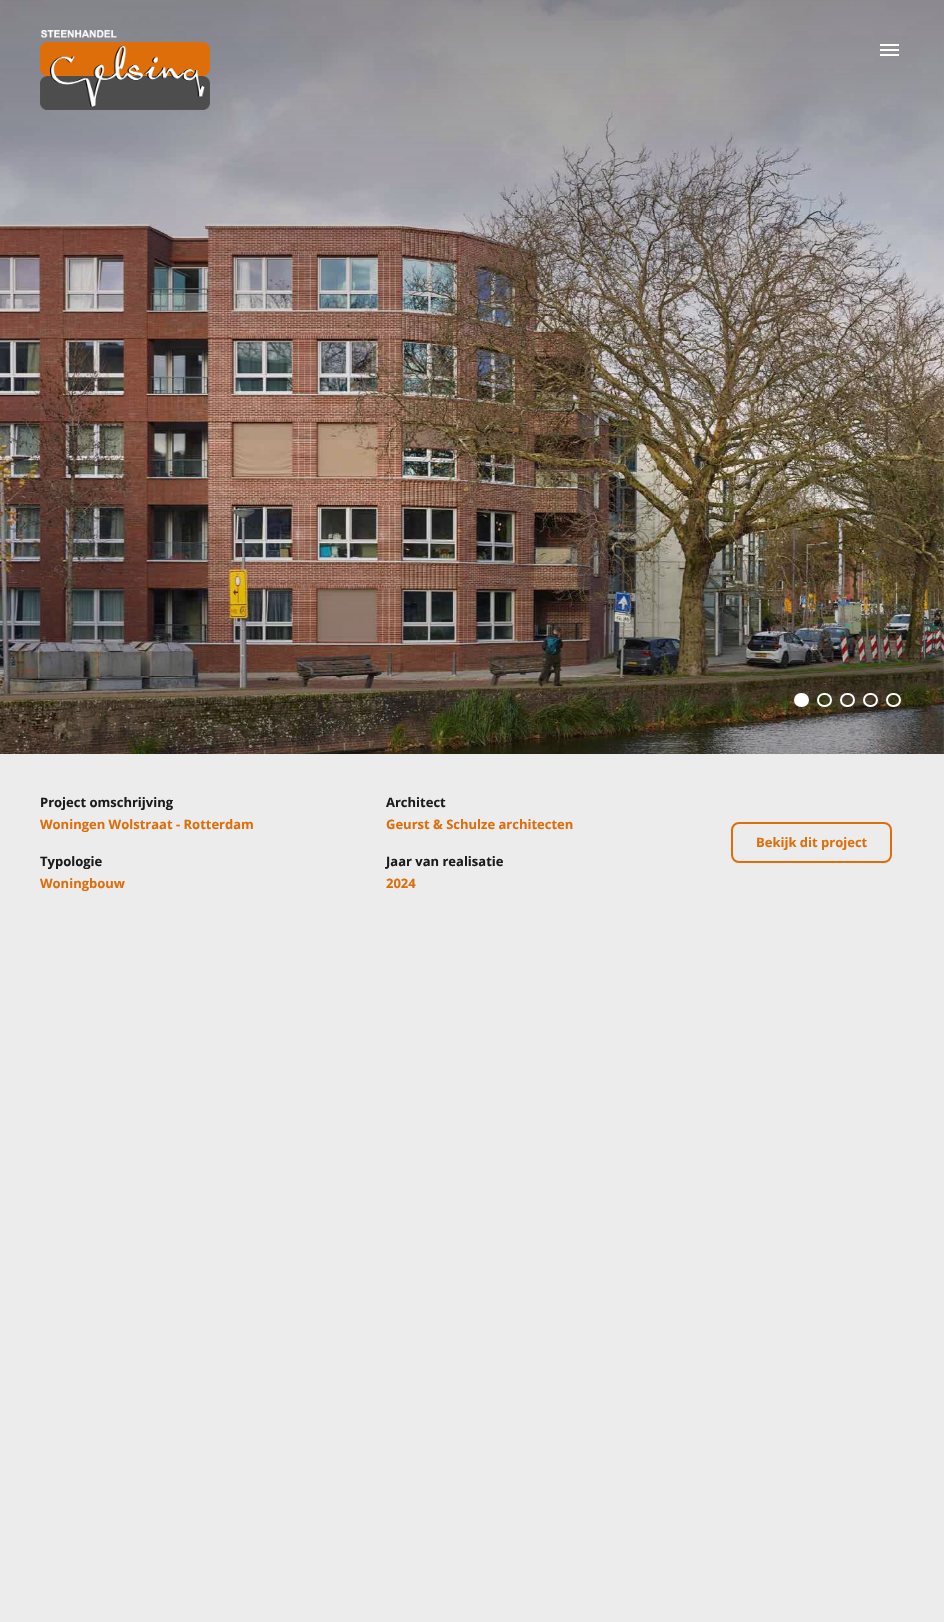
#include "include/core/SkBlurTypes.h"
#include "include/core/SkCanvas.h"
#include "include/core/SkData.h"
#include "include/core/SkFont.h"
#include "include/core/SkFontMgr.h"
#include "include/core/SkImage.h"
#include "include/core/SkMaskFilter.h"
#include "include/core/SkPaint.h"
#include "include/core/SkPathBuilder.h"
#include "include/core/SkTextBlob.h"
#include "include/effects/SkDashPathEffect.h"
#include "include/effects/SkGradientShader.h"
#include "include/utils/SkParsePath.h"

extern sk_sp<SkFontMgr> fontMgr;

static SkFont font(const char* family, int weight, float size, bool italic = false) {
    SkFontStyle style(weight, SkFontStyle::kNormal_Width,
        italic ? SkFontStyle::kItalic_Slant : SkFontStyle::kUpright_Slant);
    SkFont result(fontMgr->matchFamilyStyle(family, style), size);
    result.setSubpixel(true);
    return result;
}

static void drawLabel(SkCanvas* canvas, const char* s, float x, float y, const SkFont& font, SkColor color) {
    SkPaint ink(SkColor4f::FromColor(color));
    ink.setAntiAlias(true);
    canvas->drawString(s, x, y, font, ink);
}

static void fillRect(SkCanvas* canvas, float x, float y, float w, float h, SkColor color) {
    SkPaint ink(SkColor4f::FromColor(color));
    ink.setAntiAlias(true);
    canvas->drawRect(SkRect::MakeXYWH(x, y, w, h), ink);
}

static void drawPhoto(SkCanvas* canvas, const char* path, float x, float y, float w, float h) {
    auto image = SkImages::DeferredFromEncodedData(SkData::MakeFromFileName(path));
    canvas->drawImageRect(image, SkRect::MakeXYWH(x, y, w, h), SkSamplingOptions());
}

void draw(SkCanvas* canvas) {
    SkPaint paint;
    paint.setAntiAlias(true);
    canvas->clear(0xFFECECEC);
    drawPhoto(canvas, "assets/img2.png", 0, 0, 944, 754);
    {
        const SkColor colors[] = {0x6612100B, 0x0012100B};
        const float stops[] = {0, 1};
        const SkPoint ends[] = {{472, 0}, {472, 465}};
        paint.setShader(SkGradientShader::MakeLinear(ends, colors, stops, 2, SkTileMode::kClamp));
        paint.setAlpha(255);
    }
    canvas->drawRect(SkRect::MakeXYWH(0, 0, 944, 440), paint);
    drawPhoto(canvas, "assets/img1.png", 40, 30, 170, 80);
    fillRect(canvas, 880, 49, 19, 2, 0xFFFFFFFF);
    fillRect(canvas, 880, 44, 19, 2, 0xFFFFFFFF);
    fillRect(canvas, 880, 54, 19, 2, 0xFFFFFFFF);
    {
        const SkColor colors[] = {0x0012100B, 0x6612100B};
        const float stops[] = {0, 1};
        const SkPoint ends[] = {{472, 465}, {472, 930}};
        paint.setShader(SkGradientShader::MakeLinear(ends, colors, stops, 2, SkTileMode::kClamp));
        paint.setAlpha(255);
    }
    canvas->drawRect(SkRect::MakeXYWH(0, 490, 944, 264), paint);
    paint.setShader(nullptr);
    paint.setColor(0xFFFFFFFF);
    canvas->drawRoundRect(SkRect::MakeXYWH(795, 694, 13, 12), 6, 6, paint);
    paint.setStroke(true);
    paint.setStrokeWidth(2);
    canvas->drawRoundRect(SkRect::MakeXYWH(795, 694, 13, 12), 6, 6, paint);
    canvas->drawRoundRect(SkRect::MakeXYWH(818, 694, 13, 12), 6, 6, paint);
    canvas->drawRoundRect(SkRect::MakeXYWH(841, 694, 13, 12), 6, 6, paint);
    canvas->drawRoundRect(SkRect::MakeXYWH(864, 694, 13, 12), 6, 6, paint);
    canvas->drawRoundRect(SkRect::MakeXYWH(887, 694, 13, 12), 6, 6, paint);
    SkFont font1 = font("Open Sans", 700, 13);
    drawLabel(canvas, "Project omschrijving", 40, 807, font1, 0xFF1B1B1B);
    drawLabel(canvas, "Woningen Wolstraat - Rotterdam", 40, 829, font1, 0xFFDE6E0A);
    drawLabel(canvas, "Typologie", 40, 866, font1, 0xFF1B1B1B);
    drawLabel(canvas, "Woningbouw", 40, 888, font1, 0xFFDE6E0A);
    drawLabel(canvas, "Architect", 386, 807, font1, 0xFF1B1B1B);
    drawLabel(canvas, "Geurst & Schulze architecten", 386, 829, font1, 0xFFDE6E0A);
    drawLabel(canvas, "Jaar van realisatie", 386, 866, font1, 0xFF1B1B1B);
    drawLabel(canvas, "2024", 386, 888, font1, 0xFFDE6E0A);
    paint.setColor(0xFFDE6E0A);
    canvas->drawRoundRect(SkRect::MakeXYWH(732, 823, 159, 39), 7, 7, paint);
    drawLabel(canvas, "Bekijk dit project", 756, 847, font1, 0xFFDE6E0A);
}
